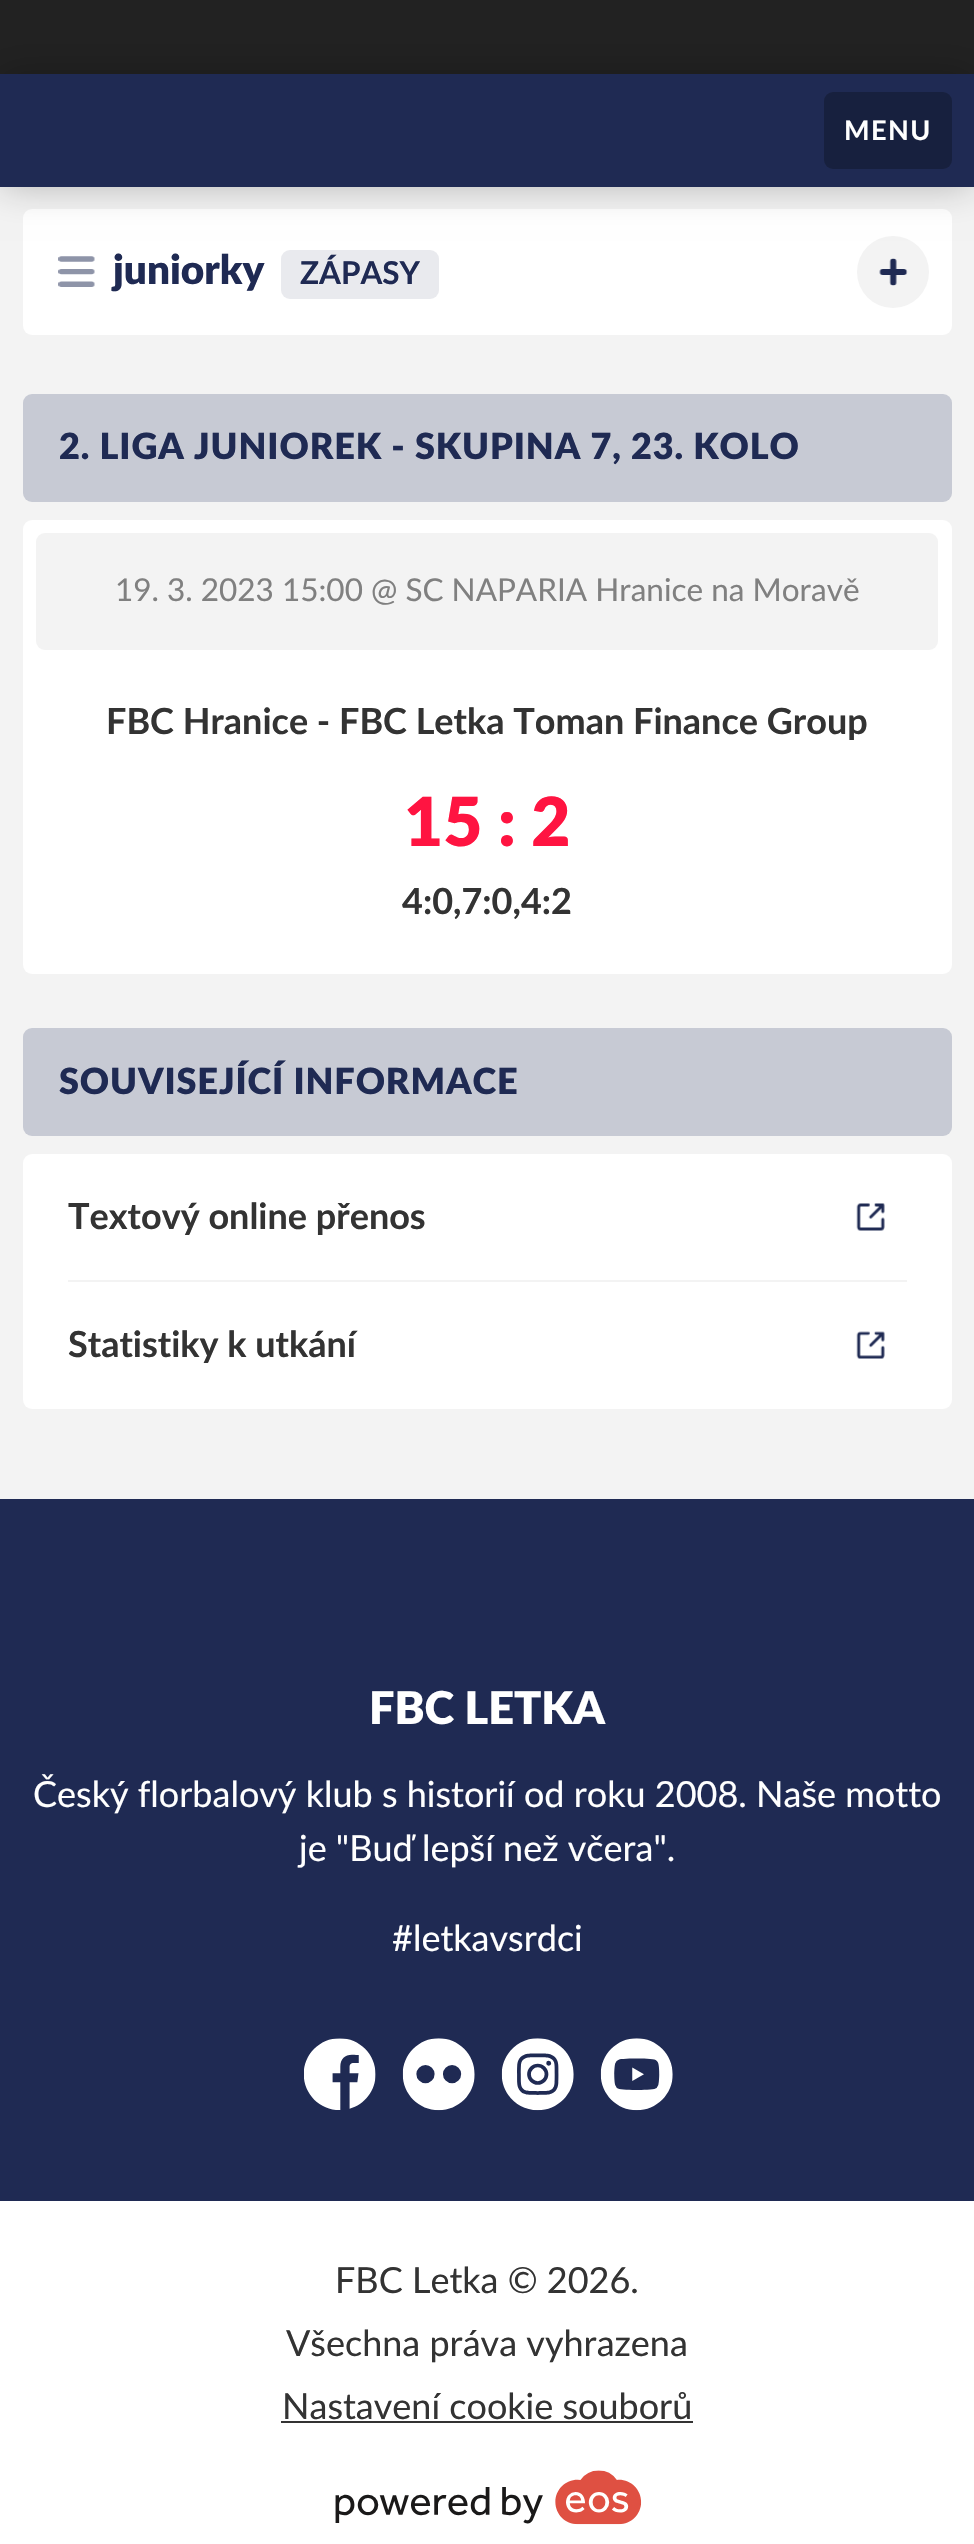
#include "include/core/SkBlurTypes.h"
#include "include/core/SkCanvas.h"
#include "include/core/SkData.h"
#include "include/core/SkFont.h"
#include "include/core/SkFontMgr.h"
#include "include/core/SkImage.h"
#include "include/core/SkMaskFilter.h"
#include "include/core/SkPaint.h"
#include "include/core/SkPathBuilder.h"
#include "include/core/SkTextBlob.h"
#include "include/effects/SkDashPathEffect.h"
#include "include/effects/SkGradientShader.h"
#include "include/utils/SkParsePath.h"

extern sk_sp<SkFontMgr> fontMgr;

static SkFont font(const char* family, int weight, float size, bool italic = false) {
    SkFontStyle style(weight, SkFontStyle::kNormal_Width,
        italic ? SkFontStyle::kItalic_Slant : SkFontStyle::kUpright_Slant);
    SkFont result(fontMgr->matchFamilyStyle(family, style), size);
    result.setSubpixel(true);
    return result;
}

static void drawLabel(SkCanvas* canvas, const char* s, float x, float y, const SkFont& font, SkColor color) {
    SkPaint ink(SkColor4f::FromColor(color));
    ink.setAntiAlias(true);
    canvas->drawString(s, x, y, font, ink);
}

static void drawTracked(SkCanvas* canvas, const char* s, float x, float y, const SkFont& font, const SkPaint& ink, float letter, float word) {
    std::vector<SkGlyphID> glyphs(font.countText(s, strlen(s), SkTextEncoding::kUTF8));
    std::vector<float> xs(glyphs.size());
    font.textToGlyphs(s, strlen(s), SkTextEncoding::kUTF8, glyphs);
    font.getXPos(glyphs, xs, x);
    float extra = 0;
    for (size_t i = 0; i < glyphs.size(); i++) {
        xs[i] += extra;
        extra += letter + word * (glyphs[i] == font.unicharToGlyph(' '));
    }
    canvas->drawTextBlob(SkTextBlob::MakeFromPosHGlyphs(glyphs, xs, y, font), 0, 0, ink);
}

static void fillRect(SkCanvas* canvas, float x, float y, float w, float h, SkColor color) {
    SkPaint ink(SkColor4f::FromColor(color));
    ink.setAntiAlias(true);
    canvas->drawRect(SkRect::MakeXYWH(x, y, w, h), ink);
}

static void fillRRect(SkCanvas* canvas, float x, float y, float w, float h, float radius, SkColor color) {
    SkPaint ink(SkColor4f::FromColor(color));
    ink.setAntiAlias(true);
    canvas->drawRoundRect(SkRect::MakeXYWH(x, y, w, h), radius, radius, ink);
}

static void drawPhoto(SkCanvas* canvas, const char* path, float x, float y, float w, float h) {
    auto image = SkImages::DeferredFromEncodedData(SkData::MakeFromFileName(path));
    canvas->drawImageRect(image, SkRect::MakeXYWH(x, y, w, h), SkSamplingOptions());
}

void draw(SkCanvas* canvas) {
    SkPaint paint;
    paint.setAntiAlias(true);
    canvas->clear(0xFFF3F3F3);
    fillRect(canvas, 0, 0, 974, 74, 0xFF222222);
    fillRRect(canvas, 23, 209, 929, 126, 9, 0xFFFFFFFF);
    paint.setColor(0xFFF3F3F3);
    canvas->drawCircle(893, 272, 36, paint);
    paint.setColor(0x40000000);
    paint.setMaskFilter(SkMaskFilter::MakeBlur(kNormal_SkBlurStyle, 18));
    canvas->drawRect(SkRect::MakeXYWH(0, 74, 974, 113), paint);
    paint.setMaskFilter(nullptr);
    fillRect(canvas, 0, 74, 974, 113, 0xFF1F2A53);
    fillRRect(canvas, 824, 92, 128, 77, 9, 0xFF17203E);
    SkFont font1 = font("Lato", 700, 27);
    paint.setColor(0xFFFFFFFF);
    drawTracked(canvas, "MENU", 844, 140, font1, paint, 1.5f, 0);
    drawPhoto(canvas, "assets/img1.png", 58, 256, 37, 31);
    SkFont font2 = font("Lato", 900, 40.5f);
    drawLabel(canvas, "juniorky", 113, 284, font2, 0xFF1F2A53);
    fillRRect(canvas, 281, 250, 158, 49, 9, 0xFFE9EAEE);
    SkFont font3 = font("Lato", 700, 31.5f);
    drawLabel(canvas, "ZÁPASY", 300, 284, font3, 0xFF1F2A53);
    drawPhoto(canvas, "assets/img2.png", 879, 258, 29, 28);
    fillRRect(canvas, 23, 394, 929, 108, 9, 0xFFC7CAD4);
    SkFont font4 = font("Lato", 900, 36);
    paint.setColor(0xFF1F2A53);
    drawTracked(canvas, "2. LIGA JUNIOREK - SKUPINA 7, 23. KOLO", 59, 459, font4, paint, 0.9f, 0);
    fillRRect(canvas, 23, 520, 929, 454, 9, 0xFFFFFFFF);
    fillRRect(canvas, 36, 533, 902, 117, 9, 0xFFF3F3F3);
    SkFont font5 = font("Lato", 400, 31.5f);
    drawLabel(canvas, "19. 3. 2023 15:00 @ SC NAPARIA Hranice na Moravě", 115, 601, font5, 0xFF808080);
    SkFont font6 = font("Lato", 700, 36);
    drawLabel(canvas, "FBC Hranice - FBC Letka Toman Finance Group", 106, 734, font6, 0xFF333333);
    SkFont font7 = font("Lato", 900, 67.5f);
    drawLabel(canvas, "15 : 2", 404, 846, font7, 0xFFFF1441);
    drawLabel(canvas, "4:0,7:0,4:2", 402, 914, font6, 0xFF333333);
    fillRRect(canvas, 23, 1028, 929, 108, 9, 0xFFC7CAD4);
    drawTracked(canvas, "SOUVISEJÍCÍ INFORMACE", 59, 1094, font4, paint, 0.9f, 0);
    fillRRect(canvas, 23, 1154, 929, 255, 9, 0xFFFFFFFF);
    drawLabel(canvas, "Textový online přenos", 68, 1229, font6, 0xFF333333);
    drawPhoto(canvas, "assets/img3.png", 856, 1203, 29, 28);
    fillRect(canvas, 68, 1280, 839, 2, 0xFFF3F3F3);
    drawLabel(canvas, "Statistiky k utkání", 68, 1357, font6, 0xFF333333);
    drawPhoto(canvas, "assets/img4.png", 856, 1331, 29, 28);
    fillRect(canvas, 0, 1499, 974, 702, 0xFF1F2A53);
    SkFont font8 = font("Lato", 900, 45);
    drawLabel(canvas, "FBC LETKA", 369, 1724, font8, 0xFFFFFFFF);
    SkFont font9 = font("Lato", 400, 36);
    drawLabel(canvas, "Český florbalový klub s historií od roku 2008. Naše motto", 33, 1807, font9, 0xFFFFFFFF);
    drawLabel(canvas, "je \"Buď lepší než včera\".", 299, 1861, font9, 0xFFFFFFFF);
    drawLabel(canvas, "#letkavsrdci", 392, 1951, font9, 0xFFFFFFFF);
    drawPhoto(canvas, "assets/img5.png", 304, 2038, 72, 72);
    drawPhoto(canvas, "assets/img6.png", 402, 2038, 73, 73);
    drawPhoto(canvas, "assets/img7.png", 501, 2038, 73, 73);
    drawPhoto(canvas, "assets/img8.png", 600, 2038, 73, 73);
    fillRect(canvas, 0, 2201, 974, 343, 0xFFFFFFFF);
    drawLabel(canvas, "FBC Letka © 2026.", 335, 2293, font9, 0xFF333333);
    drawLabel(canvas, "Všechna práva vyhrazena", 286, 2356, font9, 0xFF333333);
    drawLabel(canvas, "Nastavení cookie souborů", 282, 2419, font9, 0xFF333333);
    fillRect(canvas, 281, 2421, 412, 2, 0xFF333333);
    drawPhoto(canvas, "assets/img9.png", 335, 2470, 307, 55);
}
